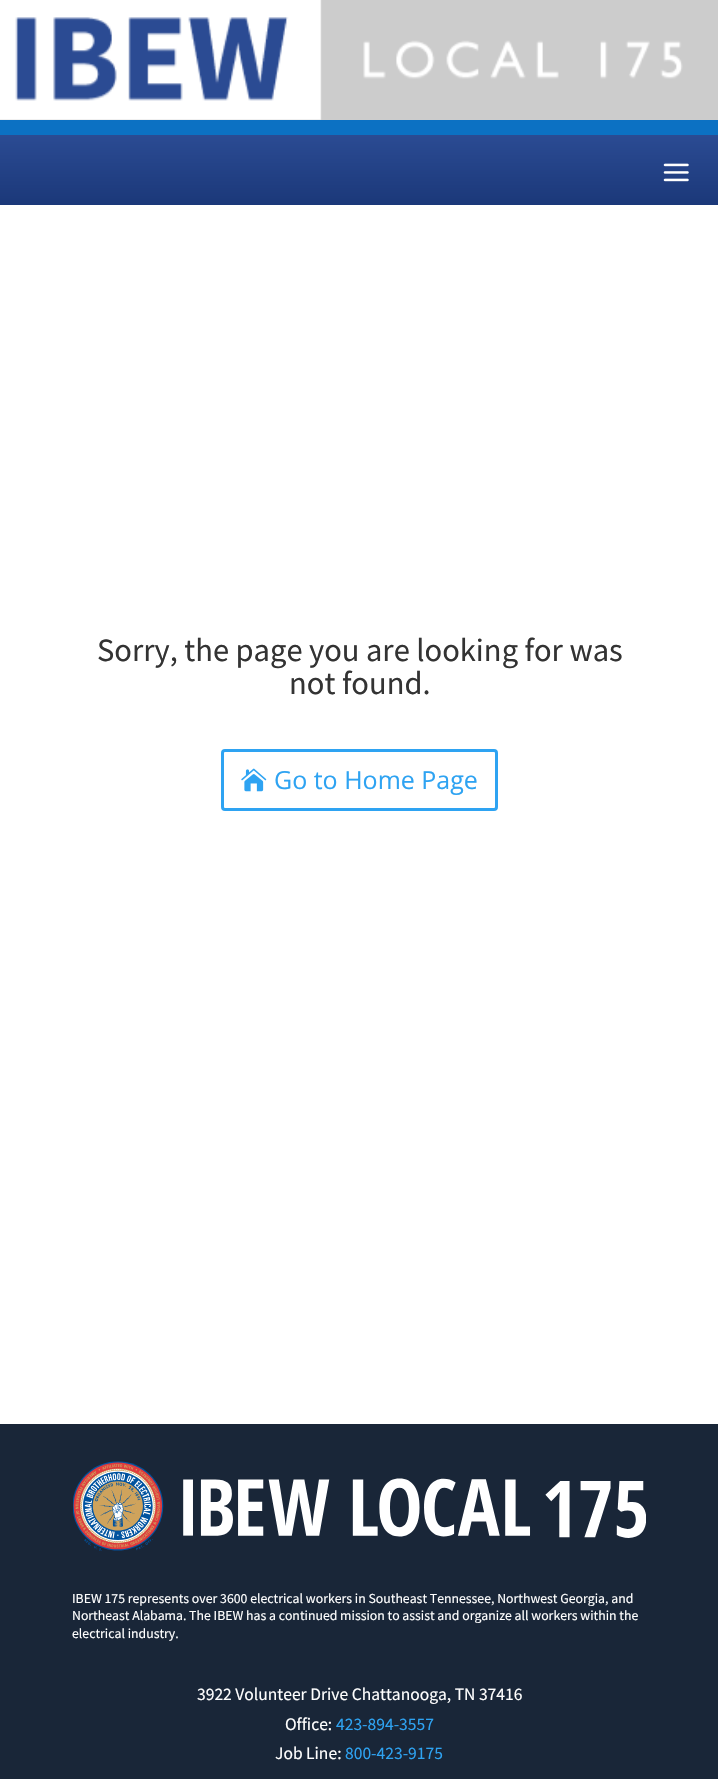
#include "include/core/SkBlurTypes.h"
#include "include/core/SkCanvas.h"
#include "include/core/SkData.h"
#include "include/core/SkFont.h"
#include "include/core/SkFontMgr.h"
#include "include/core/SkImage.h"
#include "include/core/SkMaskFilter.h"
#include "include/core/SkPaint.h"
#include "include/core/SkPathBuilder.h"
#include "include/core/SkTextBlob.h"
#include "include/effects/SkDashPathEffect.h"
#include "include/effects/SkGradientShader.h"
#include "include/utils/SkParsePath.h"

extern sk_sp<SkFontMgr> fontMgr;

static SkFont font(const char* family, int weight, float size, bool italic = false) {
    SkFontStyle style(weight, SkFontStyle::kNormal_Width,
        italic ? SkFontStyle::kItalic_Slant : SkFontStyle::kUpright_Slant);
    SkFont result(fontMgr->matchFamilyStyle(family, style), size);
    result.setSubpixel(true);
    return result;
}

static void drawLabel(SkCanvas* canvas, const char* s, float x, float y, const SkFont& font, SkColor color) {
    SkPaint ink(SkColor4f::FromColor(color));
    ink.setAntiAlias(true);
    canvas->drawString(s, x, y, font, ink);
}

static void fillRect(SkCanvas* canvas, float x, float y, float w, float h, SkColor color) {
    SkPaint ink(SkColor4f::FromColor(color));
    ink.setAntiAlias(true);
    canvas->drawRect(SkRect::MakeXYWH(x, y, w, h), ink);
}

static void drawPhoto(SkCanvas* canvas, const char* path, float x, float y, float w, float h) {
    auto image = SkImages::DeferredFromEncodedData(SkData::MakeFromFileName(path));
    canvas->drawImageRect(image, SkRect::MakeXYWH(x, y, w, h), SkSamplingOptions());
}

void draw(SkCanvas* canvas) {
    SkPaint paint;
    paint.setAntiAlias(true);
    canvas->clear(0xFFFFFFFF);
    fillRect(canvas, 0, 0, 718, 120, 0xFFCCCCCC);
    drawPhoto(canvas, "assets/img1.png", 0, 0, 683, 120);
    fillRect(canvas, 0, 120, 718, 15, 0xFF0C71C3);
    {
        const SkColor colors[] = {0xFF2B4B93, 0xFF1B3879};
        const float stops[] = {0, 1};
        const SkPoint ends[] = {{359, 135}, {359, 205}};
        paint.setShader(SkGradientShader::MakeLinear(ends, colors, stops, 2, SkTileMode::kClamp));
        paint.setAlpha(255);
    }
    canvas->drawRect(SkRect::MakeXYWH(0, 135, 718, 70), paint);
    drawPhoto(canvas, "assets/img2.png", 663, 163, 26, 19);
    SkFont font1 = font("Source Sans Pro", 400, 32.5f);
    drawLabel(canvas, "Sorry, the page you are looking for was", 97, 661, font1, 0xFF333333);
    drawLabel(canvas, "not found.", 289, 694, font1, 0xFF333333);
    paint.setStroke(true);
    paint.setStrokeWidth(3);
    paint.setShader(nullptr);
    paint.setColor(0xFF2EA3F2);
    canvas->drawRoundRect(SkRect::MakeXYWH(222.5f, 750.5f, 274, 59), 2.5f, 2.5f, paint);
    drawPhoto(canvas, "assets/img3.png", 241, 768, 26, 24);
    SkFont font2 = font("Open Sans", 400, 25);
    drawLabel(canvas, "Go to Home Page", 274, 789, font2, 0xFF2EA3F2);
    fillRect(canvas, 0, 1424, 718, 355, 0xFF192638);
    drawPhoto(canvas, "assets/img4.png", 73, 1461, 573, 90);
    SkFont font3 = font("Source Sans Pro", 400, 13.75f);
    drawLabel(canvas, "IBEW 175 represents over 3600 electrical workers in Southeast Tennessee, Northwest Georgia, and", 72, 1603, font3, 0xFFFFFFFF);
    drawLabel(canvas, "Northeast Alabama. The IBEW has a continued mission to assist and organize all workers within the", 72, 1620, font3, 0xFFFFFFFF);
    drawLabel(canvas, "electrical industry.", 72, 1638, font3, 0xFFFFFFFF);
    SkFont font4 = font("Source Sans Pro", 400, 17.5f);
    drawLabel(canvas, "3922 Volunteer Drive Chattanooga, TN 37416", 197, 1700, font4, 0xFFFFFFFF);
    drawLabel(canvas, "Office:", 285, 1730, font4, 0xFFFFFFFF);
    drawLabel(canvas, "423-894-3557", 336, 1730, font4, 0xFF2EA3F2);
    drawLabel(canvas, "Job Line:", 275, 1759, font4, 0xFFFFFFFF);
    drawLabel(canvas, "800-423-9175", 345, 1759, font4, 0xFF2EA3F2);
}
